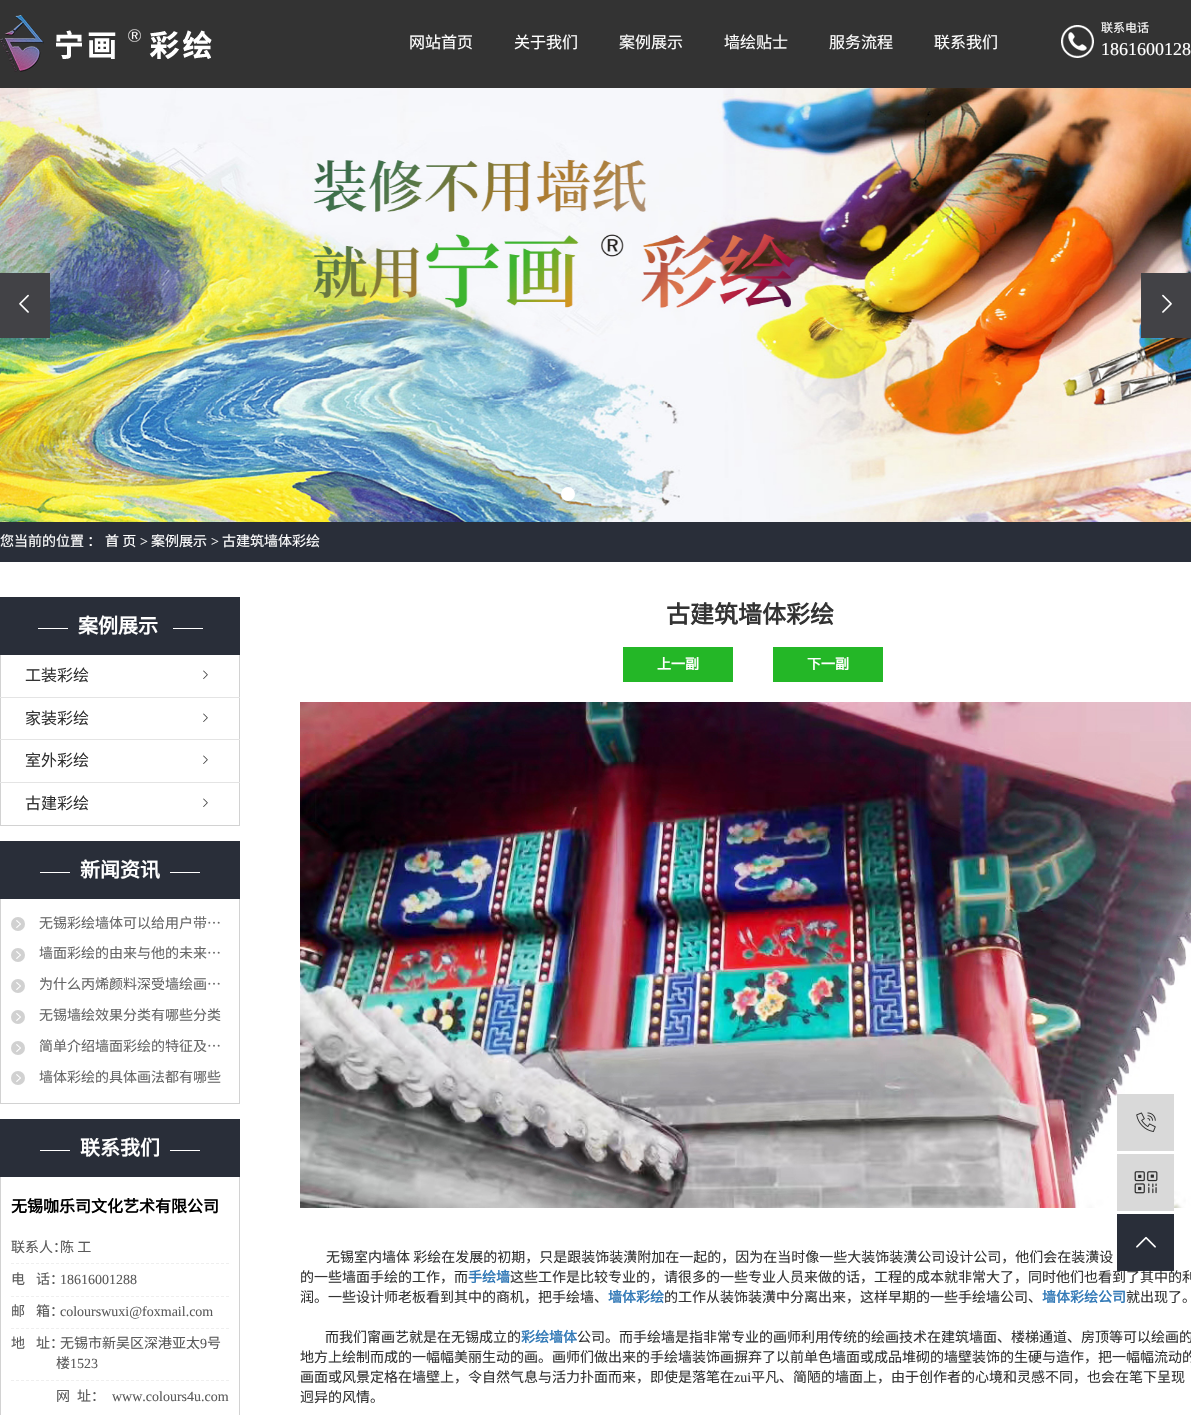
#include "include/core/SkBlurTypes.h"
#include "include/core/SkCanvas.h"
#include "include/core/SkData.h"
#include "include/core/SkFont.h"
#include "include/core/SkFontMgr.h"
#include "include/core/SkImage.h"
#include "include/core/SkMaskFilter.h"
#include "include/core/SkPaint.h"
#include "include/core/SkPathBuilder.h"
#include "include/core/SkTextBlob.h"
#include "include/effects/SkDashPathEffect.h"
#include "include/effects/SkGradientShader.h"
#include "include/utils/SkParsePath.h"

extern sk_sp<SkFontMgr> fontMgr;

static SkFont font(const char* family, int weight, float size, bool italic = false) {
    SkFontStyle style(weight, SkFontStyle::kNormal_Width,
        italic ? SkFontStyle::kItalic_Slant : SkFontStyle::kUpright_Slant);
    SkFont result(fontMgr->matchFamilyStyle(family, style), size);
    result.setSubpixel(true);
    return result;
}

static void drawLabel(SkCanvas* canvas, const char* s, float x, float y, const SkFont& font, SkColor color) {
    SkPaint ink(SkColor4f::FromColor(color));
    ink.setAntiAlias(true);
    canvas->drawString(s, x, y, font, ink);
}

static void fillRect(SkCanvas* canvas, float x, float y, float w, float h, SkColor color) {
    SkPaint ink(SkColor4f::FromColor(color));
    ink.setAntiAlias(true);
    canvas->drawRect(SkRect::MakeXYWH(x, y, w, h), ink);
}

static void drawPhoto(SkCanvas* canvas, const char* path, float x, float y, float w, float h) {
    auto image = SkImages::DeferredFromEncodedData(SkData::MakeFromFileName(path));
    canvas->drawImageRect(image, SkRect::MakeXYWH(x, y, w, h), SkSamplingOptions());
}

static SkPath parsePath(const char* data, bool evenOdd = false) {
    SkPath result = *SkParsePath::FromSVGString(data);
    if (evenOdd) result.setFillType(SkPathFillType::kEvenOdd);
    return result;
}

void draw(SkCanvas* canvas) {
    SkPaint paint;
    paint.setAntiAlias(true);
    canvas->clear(0xFFFFFFFF);
    fillRect(canvas, 0, 0, 1191, 88, 0xFF333333);
    drawPhoto(canvas, "assets/img1.png", 0, 15, 212, 57);
    SkFont font1 = font("Noto Sans CJK SC", 400, 16);
    drawLabel(canvas, "网站首页", 409, 48, font1, 0xFFFFFFFF);
    drawLabel(canvas, "关于我们", 514, 48, font1, 0xFFFFFFFF);
    drawLabel(canvas, "案例展示", 619, 48, font1, 0xFFFFFFFF);
    drawLabel(canvas, "墙绘贴士", 724, 48, font1, 0xFFFFFFFF);
    drawLabel(canvas, "服务流程", 829, 48, font1, 0xFFFFFFFF);
    drawLabel(canvas, "联系我们", 934, 48, font1, 0xFFFFFFFF);
    drawPhoto(canvas, "assets/img2.png", 1061, 25, 33, 33);
    SkFont font2 = font("Noto Sans CJK SC", 400, 12);
    drawLabel(canvas, "联系电话", 1101, 32, font2, 0xFFFFFFFF);
    SkFont font3 = font("Liberation Serif", 400, 18);
    drawLabel(canvas, "1861600128", 1101, 55, font3, 0xFFFFFFFF);
    drawPhoto(canvas, "assets/img3.png", 0, 88, 1191, 434);
    fillRect(canvas, 0, 273, 50, 65, 0xFF424246);
    drawPhoto(canvas, "assets/img4.png", 19, 294, 10, 19);
    fillRect(canvas, 1141, 273, 50, 65, 0xFF424246);
    drawPhoto(canvas, "assets/img5.png", 1162, 294, 10, 19);
    paint.setColor(0xFFFFFFFF);
    canvas->drawCircle(568, 494, 7, paint);
    paint.setColor(0x33FFFFFF);
    canvas->drawCircle(596, 494, 7, paint);
    canvas->drawCircle(624, 494, 7, paint);
    fillRect(canvas, 0, 522, 1191, 40, 0xFF292E39);
    SkFont font4 = font("Noto Sans CJK SC", 400, 14);
    drawLabel(canvas, "您当前的位置 ：", 0, 546, font4, 0xFFFFFFFF);
    drawLabel(canvas, "首 页", 105, 546, font4, 0xFFFFFFFF);
    SkFont font5 = font("Liberation Serif", 400, 14);
    drawLabel(canvas, ">", 140, 546, font5, 0xFFFFFFFF);
    drawLabel(canvas, "案例展示", 151, 546, font4, 0xFFFFFFFF);
    drawLabel(canvas, ">", 211, 546, font5, 0xFFFFFFFF);
    drawLabel(canvas, "古建筑墙体彩绘", 222, 546, font4, 0xFFFFFFFF);
    fillRect(canvas, 0, 597, 240, 58, 0xFF292E39);
    fillRect(canvas, 38, 628, 30, 1, 0xFFFFFFFF);
    SkFont font6 = font("Noto Sans CJK SC", 700, 20);
    drawLabel(canvas, "案例展示", 78, 633, font6, 0xFFFFFFFF);
    fillRect(canvas, 173, 628, 30, 1, 0xFFFFFFFF);
    fillRect(canvas, 239, 655, 1, 171, 0xFFD2D2D2);
    fillRect(canvas, 0, 825, 240, 1, 0xFFD2D2D2);
    fillRect(canvas, 0, 655, 1, 171, 0xFFD2D2D2);
    drawLabel(canvas, "工装彩绘", 25, 681, font1, 0xFF333333);
    drawPhoto(canvas, "assets/img6.png", 203, 670, 5, 9);
    fillRect(canvas, 0, 697, 240, 1, 0xFFE4E4E4);
    drawLabel(canvas, "家装彩绘", 25, 724, font1, 0xFF333333);
    drawPhoto(canvas, "assets/img6.png", 203, 713, 5, 9);
    fillRect(canvas, 0, 739, 240, 1, 0xFFE4E4E4);
    drawLabel(canvas, "室外彩绘", 25, 766, font1, 0xFF333333);
    drawPhoto(canvas, "assets/img6.png", 203, 755, 5, 9);
    fillRect(canvas, 0, 782, 240, 1, 0xFFE4E4E4);
    drawLabel(canvas, "古建彩绘", 25, 809, font1, 0xFF333333);
    drawPhoto(canvas, "assets/img6.png", 203, 798, 5, 9);
    fillRect(canvas, 0, 841, 240, 58, 0xFF292E39);
    fillRect(canvas, 40, 872, 30, 1, 0xFFFFFFFF);
    drawLabel(canvas, "新闻资讯", 80, 877, font6, 0xFFFFFFFF);
    fillRect(canvas, 170, 872, 30, 1, 0xFFFFFFFF);
    fillRect(canvas, 239, 899, 1, 205, 0xFFD2D2D2);
    fillRect(canvas, 0, 1103, 240, 1, 0xFFD2D2D2);
    fillRect(canvas, 0, 899, 1, 205, 0xFFD2D2D2);
    paint.setColor(0xFFD1D1D1);
    canvas->drawCircle(18, 924, 7, paint);
    drawPhoto(canvas, "assets/img7.png", 16, 920, 5, 8);
    drawLabel(canvas, "无锡彩绘墙体可以给用户带…", 39, 928, font4, 0xFF666666);
    canvas->drawCircle(18, 955, 7, paint);
    drawPhoto(canvas, "assets/img7.png", 16, 951, 5, 8);
    drawLabel(canvas, "墙面彩绘的由来与他的未来…", 39, 958, font4, 0xFF666666);
    canvas->drawCircle(18, 986, 7, paint);
    drawPhoto(canvas, "assets/img7.png", 16, 982, 5, 8);
    drawLabel(canvas, "为什么丙烯颜料深受墙绘画…", 39, 989, font4, 0xFF666666);
    canvas->drawCircle(18, 1017, 7, paint);
    drawPhoto(canvas, "assets/img7.png", 16, 1013, 5, 8);
    drawLabel(canvas, "无锡墙绘效果分类有哪些分类", 39, 1020, font4, 0xFF666666);
    canvas->drawCircle(18, 1048, 7, paint);
    drawPhoto(canvas, "assets/img7.png", 16, 1044, 5, 8);
    drawLabel(canvas, "简单介绍墙面彩绘的特征及…", 39, 1051, font4, 0xFF666666);
    canvas->drawCircle(18, 1078, 7, paint);
    drawPhoto(canvas, "assets/img7.png", 16, 1074, 5, 8);
    drawLabel(canvas, "墙体彩绘的具体画法都有哪些", 39, 1082, font4, 0xFF666666);
    fillRect(canvas, 0, 1119, 240, 58, 0xFF292E39);
    fillRect(canvas, 40, 1150, 30, 1, 0xFFFFFFFF);
    drawLabel(canvas, "联系我们", 80, 1155, font6, 0xFFFFFFFF);
    fillRect(canvas, 170, 1150, 30, 1, 0xFFFFFFFF);
    fillRect(canvas, 239, 1177, 1, 238, 0xFFD2D2D2);
    fillRect(canvas, 0, 1177, 1, 238, 0xFFD2D2D2);
    SkFont font7 = font("Noto Sans CJK SC", 700, 16);
    drawLabel(canvas, "无锡咖乐司文化艺术有限公司", 11, 1212, font7, 0xFF000000);
    drawLabel(canvas, "联系人：", 11, 1252, font4, 0xFF5A5A5A);
    drawLabel(canvas, "陈 工", 60, 1252, font4, 0xFF5A5A5A);
    paint.setStroke(true);
    paint.setStrokeWidth(1);
    paint.setColor(0xFFEFEFEF);
    paint.setPathEffect(SkDashPathEffect::Make({{3, 2}}, 0));
    canvas->drawPath(parsePath("M11 1263.5H229"), paint);
    paint.setPathEffect(nullptr);
    drawLabel(canvas, "电", 11, 1284, font4, 0xFF5A5A5A);
    drawLabel(canvas, "话：", 36, 1284, font4, 0xFF5A5A5A);
    drawLabel(canvas, "18616001288", 60, 1284, font5, 0xFF5A5A5A);
    paint.setPathEffect(SkDashPathEffect::Make({{3, 2}}, 0));
    canvas->drawPath(parsePath("M11 1296.5H229"), paint);
    paint.setPathEffect(nullptr);
    drawLabel(canvas, "邮", 11, 1316, font4, 0xFF5A5A5A);
    drawLabel(canvas, "箱：", 36, 1316, font4, 0xFF5A5A5A);
    drawLabel(canvas, "colourswuxi@foxmail.com", 60, 1316, font5, 0xFF5A5A5A);
    paint.setPathEffect(SkDashPathEffect::Make({{3, 2}}, 0));
    canvas->drawPath(parsePath("M11 1328.5H229"), paint);
    paint.setPathEffect(nullptr);
    drawLabel(canvas, "地", 11, 1348, font4, 0xFF5A5A5A);
    drawLabel(canvas, "址：", 36, 1348, font4, 0xFF5A5A5A);
    drawLabel(canvas, "无锡市新吴区深港亚太", 60, 1348, font4, 0xFF5A5A5A);
    drawLabel(canvas, "9", 200, 1348, font5, 0xFF5A5A5A);
    drawLabel(canvas, "号", 207, 1348, font4, 0xFF5A5A5A);
    drawLabel(canvas, "楼", 56, 1368, font4, 0xFF5A5A5A);
    drawLabel(canvas, "1523", 70, 1368, font5, 0xFF5A5A5A);
    paint.setPathEffect(SkDashPathEffect::Make({{3, 2}}, 0));
    canvas->drawPath(parsePath("M11 1380.5H229"), paint);
    paint.setPathEffect(nullptr);
    drawLabel(canvas, "网", 56, 1401, font4, 0xFF5A5A5A);
    drawLabel(canvas, "址：", 77, 1401, font4, 0xFF5A5A5A);
    drawLabel(canvas, "www.colours4u.com", 112, 1401, font5, 0xFF5A5A5A);
    SkFont font8 = font("Noto Sans CJK SC", 700, 24);
    drawLabel(canvas, "古建筑墙体彩绘", 666, 623, font8, 0xFF333333);
    fillRect(canvas, 623, 647, 110, 35, 0xFF24B727);
    SkFont font9 = font("Noto Sans CJK SC", 700, 14);
    drawLabel(canvas, "上一副", 657, 669, font9, 0xFFFFFFFF);
    fillRect(canvas, 773, 647, 110, 35, 0xFF24B727);
    drawLabel(canvas, "下一副", 807, 669, font9, 0xFFFFFFFF);
    drawPhoto(canvas, "assets/img8.png", 300, 702, 891, 506);
    drawLabel(canvas, "无锡室内墙体 彩绘在发展的初期，只是跟装饰装潢附加在一起的，因为在当时像一些大装饰装潢公司设计公司，他们会在装潢设", 326, 1262, font4, 0xFF333333);
    drawLabel(canvas, "的一些墙面手绘的工作，而", 300, 1282, font4, 0xFF333333);
    drawLabel(canvas, "手绘墙", 468, 1282, font9, 0xFF337AB7);
    drawLabel(canvas, "这些工作是比较专业的，请很多的一些专业人员来做的话，工程的成本就非常大了，同时他们也看到了其中的利", 510, 1282, font4, 0xFF333333);
    drawLabel(canvas, "润。一些设计师老板看到其中的商机，把手绘墙、", 300, 1302, font4, 0xFF333333);
    drawLabel(canvas, "墙体彩绘", 608, 1302, font9, 0xFF337AB7);
    drawLabel(canvas, "的工作从装饰装潢中分离出来，这样早期的一些手绘墙公司、", 664, 1302, font4, 0xFF333333);
    drawLabel(canvas, "墙体彩绘公司", 1042, 1302, font9, 0xFF337AB7);
    drawLabel(canvas, "就出现了。", 1126, 1302, font4, 0xFF333333);
    drawLabel(canvas, "而我们甯画艺就是在无锡成立的", 325, 1342, font4, 0xFF333333);
    drawLabel(canvas, "彩绘墙体", 521, 1342, font9, 0xFF337AB7);
    drawLabel(canvas, "公司。而手绘墙是指非常专业的画师利用传统的绘画技术在建筑墙面、楼梯通道、房顶等可以绘画的", 577, 1342, font4, 0xFF333333);
    drawLabel(canvas, "地方上绘制而成的一幅幅美丽生动的画。画师们做出来的手绘墙装饰画摒弃了以前单色墙面或成品堆砌的墙壁装饰的生硬与造作，把一幅幅流动的", 300, 1362, font4, 0xFF333333);
    drawLabel(canvas, "画面或风景定格在墙壁上，令自然气息与活力扑面而来，即使是落笔在", 300, 1382, font4, 0xFF333333);
    drawLabel(canvas, "zui", 734, 1382, font5, 0xFF333333);
    drawLabel(canvas, "平凡、简陋的墙面上，由于创作者的心境和灵感不同，也会在笔下呈现", 751, 1382, font4, 0xFF333333);
    drawLabel(canvas, "迥异的风情。", 300, 1402, font4, 0xFF333333);
    fillRect(canvas, 1117, 1094, 57, 57, 0xFFD9D9D9);
    drawPhoto(canvas, "assets/img9.png", 1136, 1112, 20, 20);
    fillRect(canvas, 1117, 1154, 57, 57, 0xFFD9D9D9);
    drawPhoto(canvas, "assets/img10.png", 1134, 1171, 24, 23);
    fillRect(canvas, 1117, 1214, 57, 57, 0xFF292E39);
    drawPhoto(canvas, "assets/img11.png", 1136, 1236, 20, 12);
}
